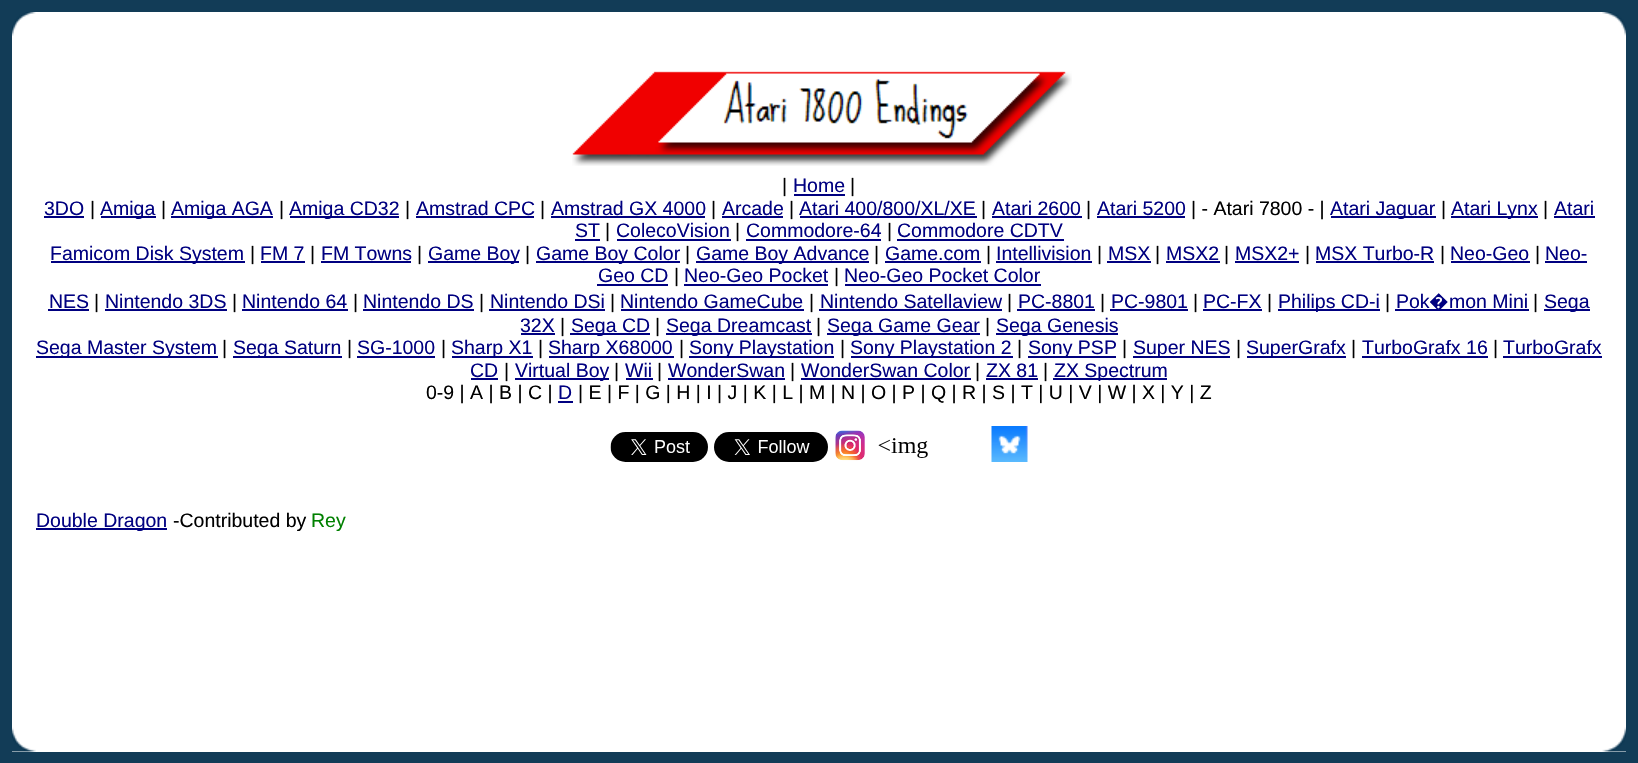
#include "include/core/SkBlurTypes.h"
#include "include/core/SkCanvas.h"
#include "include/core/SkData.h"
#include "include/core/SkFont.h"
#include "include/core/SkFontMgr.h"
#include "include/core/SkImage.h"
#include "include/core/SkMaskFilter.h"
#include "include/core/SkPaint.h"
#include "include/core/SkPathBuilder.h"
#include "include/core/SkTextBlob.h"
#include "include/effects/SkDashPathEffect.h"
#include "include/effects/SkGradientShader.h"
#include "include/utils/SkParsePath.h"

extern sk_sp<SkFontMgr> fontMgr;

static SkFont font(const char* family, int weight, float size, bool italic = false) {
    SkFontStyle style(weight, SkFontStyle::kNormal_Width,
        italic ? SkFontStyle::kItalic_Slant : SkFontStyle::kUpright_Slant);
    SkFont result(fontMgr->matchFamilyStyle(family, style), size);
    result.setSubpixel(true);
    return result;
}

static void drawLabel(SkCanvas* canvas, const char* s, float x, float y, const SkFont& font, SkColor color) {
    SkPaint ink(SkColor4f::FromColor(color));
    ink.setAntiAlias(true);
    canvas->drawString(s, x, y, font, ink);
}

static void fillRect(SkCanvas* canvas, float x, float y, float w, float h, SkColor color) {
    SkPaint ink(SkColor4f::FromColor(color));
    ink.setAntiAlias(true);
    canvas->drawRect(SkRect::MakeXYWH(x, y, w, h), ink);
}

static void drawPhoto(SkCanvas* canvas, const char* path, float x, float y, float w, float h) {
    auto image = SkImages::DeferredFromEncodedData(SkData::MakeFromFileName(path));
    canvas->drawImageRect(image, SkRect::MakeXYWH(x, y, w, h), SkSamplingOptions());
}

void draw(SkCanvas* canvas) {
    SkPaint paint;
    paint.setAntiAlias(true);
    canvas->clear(0xFF123C57);
    fillRect(canvas, 12, 12, 1614, 740, 0xFFFFFFFF);
    drawPhoto(canvas, "assets/img1.png", 12, 12, 24, 24);
    drawPhoto(canvas, "assets/img2.png", 1602, 12, 24, 24);
    drawPhoto(canvas, "assets/img3.png", 572, 71, 500, 95);
    SkFont font1 = font("Liberation Sans", 400, 19.5f);
    drawLabel(canvas, "|", 782, 192, font1, 0xFF000000);
    drawLabel(canvas, "Home", 793, 192, font1, 0xFF000080);
    fillRect(canvas, 794, 194, 51, 2, 0xFF000080);
    drawLabel(canvas, "|", 850, 192, font1, 0xFF000000);
    drawLabel(canvas, "3DO", 44, 215, font1, 0xFF000080);
    fillRect(canvas, 44, 216, 40, 2, 0xFF000080);
    drawLabel(canvas, "|", 90, 215, font1, 0xFF000000);
    fillRect(canvas, 101, 216, 55, 2, 0xFF000080);
    drawLabel(canvas, "Amiga", 100, 215, font1, 0xFF000080);
    drawLabel(canvas, "|", 161, 215, font1, 0xFF000000);
    fillRect(canvas, 171, 216, 102, 2, 0xFF000080);
    drawLabel(canvas, "Amiga AGA", 171, 215, font1, 0xFF000080);
    drawLabel(canvas, "|", 279, 215, font1, 0xFF000000);
    fillRect(canvas, 290, 216, 109, 2, 0xFF000080);
    drawLabel(canvas, "Amiga CD32", 289, 215, font1, 0xFF000080);
    drawLabel(canvas, "|", 405, 215, font1, 0xFF000000);
    drawLabel(canvas, "Amstrad CPC", 416, 215, font1, 0xFF000080);
    fillRect(canvas, 416, 216, 118, 2, 0xFF000080);
    drawLabel(canvas, "|", 540, 215, font1, 0xFF000000);
    drawLabel(canvas, "Amstrad GX 4000", 551, 215, font1, 0xFF000080);
    fillRect(canvas, 551, 216, 154, 2, 0xFF000080);
    drawLabel(canvas, "|", 711, 215, font1, 0xFF000000);
    drawLabel(canvas, "Arcade", 722, 215, font1, 0xFF000080);
    fillRect(canvas, 722, 216, 61, 2, 0xFF000080);
    drawLabel(canvas, "|", 789, 215, font1, 0xFF000000);
    drawLabel(canvas, "Atari 400/800/XL/XE", 799, 215, font1, 0xFF000080);
    fillRect(canvas, 800, 216, 177, 2, 0xFF000080);
    drawLabel(canvas, "|", 981, 215, font1, 0xFF000000);
    drawLabel(canvas, "Atari 2600", 992, 215, font1, 0xFF000080);
    fillRect(canvas, 992, 216, 90, 2, 0xFF000080);
    drawLabel(canvas, "|", 1086, 215, font1, 0xFF000000);
    drawLabel(canvas, "Atari 5200", 1097, 215, font1, 0xFF000080);
    fillRect(canvas, 1097, 216, 88, 2, 0xFF000080);
    drawLabel(canvas, "| - Atari 7800 - |", 1191, 215, font1, 0xFF000000);
    fillRect(canvas, 1331, 216, 105, 2, 0xFF000080);
    drawLabel(canvas, "Atari Jaguar", 1330, 215, font1, 0xFF000080);
    drawLabel(canvas, "|", 1441, 215, font1, 0xFF000000);
    fillRect(canvas, 1451, 216, 87, 2, 0xFF000080);
    drawLabel(canvas, "Atari Lynx", 1451, 215, font1, 0xFF000080);
    drawLabel(canvas, "|", 1543, 215, font1, 0xFF000000);
    drawLabel(canvas, "Atari", 1554, 215, font1, 0xFF000080);
    fillRect(canvas, 1554, 216, 41, 2, 0xFF000080);
    drawLabel(canvas, "ST", 575, 237, font1, 0xFF000080);
    fillRect(canvas, 575, 239, 25, 2, 0xFF000080);
    drawLabel(canvas, "|", 605, 237, font1, 0xFF000000);
    drawLabel(canvas, "ColecoVision", 616, 237, font1, 0xFF000080);
    fillRect(canvas, 617, 239, 114, 2, 0xFF000080);
    drawLabel(canvas, "|", 735, 237, font1, 0xFF000000);
    drawLabel(canvas, "Commodore-64", 746, 237, font1, 0xFF000080);
    fillRect(canvas, 746, 239, 135, 2, 0xFF000080);
    drawLabel(canvas, "|", 887, 237, font1, 0xFF000000);
    drawLabel(canvas, "Commodore CDTV", 897, 237, font1, 0xFF000080);
    fillRect(canvas, 897, 239, 167, 2, 0xFF000080);
    fillRect(canvas, 51, 261, 194, 2, 0xFF000080);
    drawLabel(canvas, "Famicom Disk System", 50, 260, font1, 0xFF000080);
    drawLabel(canvas, "|", 250, 260, font1, 0xFF000000);
    drawLabel(canvas, "FM 7", 260, 260, font1, 0xFF000080);
    fillRect(canvas, 261, 261, 44, 2, 0xFF000080);
    drawLabel(canvas, "|", 310, 260, font1, 0xFF000000);
    drawLabel(canvas, "FM Towns", 321, 260, font1, 0xFF000080);
    fillRect(canvas, 321, 261, 90, 2, 0xFF000080);
    drawLabel(canvas, "|", 417, 260, font1, 0xFF000000);
    fillRect(canvas, 428, 261, 91, 2, 0xFF000080);
    drawLabel(canvas, "Game Boy", 428, 260, font1, 0xFF000080);
    drawLabel(canvas, "|", 525, 260, font1, 0xFF000000);
    fillRect(canvas, 536, 261, 144, 2, 0xFF000080);
    drawLabel(canvas, "Game Boy Color", 536, 260, font1, 0xFF000080);
    drawLabel(canvas, "|", 685, 260, font1, 0xFF000000);
    fillRect(canvas, 696, 261, 173, 2, 0xFF000080);
    drawLabel(canvas, "Game Boy Advance", 696, 260, font1, 0xFF000080);
    drawLabel(canvas, "|", 874, 260, font1, 0xFF000000);
    drawLabel(canvas, "Game.com", 885, 260, font1, 0xFF000080);
    fillRect(canvas, 885, 261, 96, 2, 0xFF000080);
    drawLabel(canvas, "|", 986, 260, font1, 0xFF000000);
    drawLabel(canvas, "Intellivision", 996, 260, font1, 0xFF000080);
    fillRect(canvas, 996, 261, 96, 2, 0xFF000080);
    drawLabel(canvas, "|", 1097, 260, font1, 0xFF000000);
    drawLabel(canvas, "MSX", 1108, 260, font1, 0xFF000080);
    fillRect(canvas, 1107, 261, 44, 2, 0xFF000080);
    drawLabel(canvas, "|", 1155, 260, font1, 0xFF000000);
    drawLabel(canvas, "MSX2", 1166, 260, font1, 0xFF000080);
    fillRect(canvas, 1166, 261, 54, 2, 0xFF000080);
    drawLabel(canvas, "|", 1224, 260, font1, 0xFF000000);
    drawLabel(canvas, "MSX2+", 1235, 260, font1, 0xFF000080);
    fillRect(canvas, 1235, 261, 64, 2, 0xFF000080);
    drawLabel(canvas, "|", 1305, 260, font1, 0xFF000000);
    drawLabel(canvas, "MSX Turbo-R", 1315, 260, font1, 0xFF000080);
    fillRect(canvas, 1316, 261, 118, 2, 0xFF000080);
    drawLabel(canvas, "|", 1440, 260, font1, 0xFF000000);
    drawLabel(canvas, "Neo-Geo", 1450, 260, font1, 0xFF000080);
    fillRect(canvas, 1451, 261, 79, 2, 0xFF000080);
    drawLabel(canvas, "|", 1535, 260, font1, 0xFF000000);
    drawLabel(canvas, "Neo-", 1545, 260, font1, 0xFF000080);
    fillRect(canvas, 1545, 261, 42, 2, 0xFF000080);
    drawLabel(canvas, "Geo CD", 598, 282, font1, 0xFF000080);
    fillRect(canvas, 597, 284, 71, 2, 0xFF000080);
    drawLabel(canvas, "|", 674, 282, font1, 0xFF000000);
    drawLabel(canvas, "Neo-Geo Pocket", 684, 282, font1, 0xFF000080);
    fillRect(canvas, 684, 284, 144, 2, 0xFF000080);
    drawLabel(canvas, "|", 834, 282, font1, 0xFF000000);
    drawLabel(canvas, "Neo-Geo Pocket Color", 844, 282, font1, 0xFF000080);
    fillRect(canvas, 845, 284, 196, 2, 0xFF000080);
    drawLabel(canvas, "NES", 49, 308, font1, 0xFF000080);
    fillRect(canvas, 48, 309, 41, 2, 0xFF000080);
    drawLabel(canvas, "|", 94, 308, font1, 0xFF000000);
    drawLabel(canvas, "Nintendo 3DS", 105, 308, font1, 0xFF000080);
    fillRect(canvas, 105, 309, 122, 2, 0xFF000080);
    drawLabel(canvas, "|", 232, 308, font1, 0xFF000000);
    drawLabel(canvas, "Nintendo 64", 242, 308, font1, 0xFF000080);
    fillRect(canvas, 242, 309, 106, 2, 0xFF000080);
    drawLabel(canvas, "|", 353, 308, font1, 0xFF000000);
    drawLabel(canvas, "Nintendo DS", 363, 308, font1, 0xFF000080);
    fillRect(canvas, 363, 309, 111, 2, 0xFF000080);
    drawLabel(canvas, "|", 479, 308, font1, 0xFF000000);
    drawLabel(canvas, "Nintendo DSi", 490, 308, font1, 0xFF000080);
    fillRect(canvas, 489, 309, 116, 2, 0xFF000080);
    drawLabel(canvas, "|", 610, 308, font1, 0xFF000000);
    drawLabel(canvas, "Nintendo GameCube", 620, 308, font1, 0xFF000080);
    fillRect(canvas, 621, 309, 183, 2, 0xFF000080);
    drawLabel(canvas, "|", 809, 308, font1, 0xFF000000);
    drawLabel(canvas, "Nintendo Satellaview", 820, 308, font1, 0xFF000080);
    fillRect(canvas, 819, 309, 183, 2, 0xFF000080);
    drawLabel(canvas, "|", 1007, 308, font1, 0xFF000000);
    drawLabel(canvas, "PC-8801", 1018, 308, font1, 0xFF000080);
    fillRect(canvas, 1017, 309, 78, 2, 0xFF000080);
    drawLabel(canvas, "|", 1100, 308, font1, 0xFF000000);
    drawLabel(canvas, "PC-9801", 1111, 308, font1, 0xFF000080);
    fillRect(canvas, 1110, 309, 78, 2, 0xFF000080);
    drawLabel(canvas, "|", 1193, 308, font1, 0xFF000000);
    drawLabel(canvas, "PC-FX", 1203, 308, font1, 0xFF000080);
    fillRect(canvas, 1203, 309, 59, 2, 0xFF000080);
    drawLabel(canvas, "|", 1267, 308, font1, 0xFF000000);
    fillRect(canvas, 1278, 309, 102, 2, 0xFF000080);
    drawLabel(canvas, "Philips CD-i", 1278, 308, font1, 0xFF000080);
    drawLabel(canvas, "|", 1385, 308, font1, 0xFF000000);
    drawLabel(canvas, "Pok", 1396, 308, font1, 0xFF000080);
    fillRect(canvas, 1395, 309, 134, 2, 0xFF000080);
    SkFont font2 = font("Noto Sans", 400, 19.5f);
    drawLabel(canvas, "�", 1429, 308, font2, 0xFF000080);
    drawLabel(canvas, "mon Mini", 1449, 308, font1, 0xFF000080);
    drawLabel(canvas, "|", 1533, 308, font1, 0xFF000000);
    fillRect(canvas, 1544, 309, 46, 2, 0xFF000080);
    drawLabel(canvas, "Sega", 1544, 308, font1, 0xFF000080);
    drawLabel(canvas, "32X", 520, 332, font1, 0xFF000080);
    fillRect(canvas, 521, 333, 34, 2, 0xFF000080);
    drawLabel(canvas, "|", 560, 332, font1, 0xFF000000);
    fillRect(canvas, 570, 333, 80, 2, 0xFF000080);
    drawLabel(canvas, "Sega CD", 571, 332, font1, 0xFF000080);
    drawLabel(canvas, "|", 655, 332, font1, 0xFF000000);
    fillRect(canvas, 666, 333, 146, 2, 0xFF000080);
    drawLabel(canvas, "Sega Dreamcast", 666, 332, font1, 0xFF000080);
    drawLabel(canvas, "|", 816, 332, font1, 0xFF000000);
    fillRect(canvas, 827, 333, 153, 2, 0xFF000080);
    drawLabel(canvas, "Sega Game Gear", 827, 332, font1, 0xFF000080);
    drawLabel(canvas, "|", 985, 332, font1, 0xFF000000);
    fillRect(canvas, 996, 333, 122, 2, 0xFF000080);
    drawLabel(canvas, "Sega Genesis", 996, 332, font1, 0xFF000080);
    fillRect(canvas, 36, 356, 182, 2, 0xFF000080);
    drawLabel(canvas, "Sega Master System", 36, 354, font1, 0xFF000080);
    drawLabel(canvas, "|", 222, 354, font1, 0xFF000000);
    fillRect(canvas, 233, 356, 109, 2, 0xFF000080);
    drawLabel(canvas, "Sega Saturn", 233, 354, font1, 0xFF000080);
    drawLabel(canvas, "|", 347, 354, font1, 0xFF000000);
    drawLabel(canvas, "SG-1000", 357, 354, font1, 0xFF000080);
    fillRect(canvas, 357, 356, 78, 2, 0xFF000080);
    drawLabel(canvas, "|", 441, 354, font1, 0xFF000000);
    fillRect(canvas, 452, 356, 81, 2, 0xFF000080);
    drawLabel(canvas, "Sharp X1", 451, 354, font1, 0xFF000080);
    drawLabel(canvas, "|", 538, 354, font1, 0xFF000000);
    fillRect(canvas, 549, 356, 125, 2, 0xFF000080);
    drawLabel(canvas, "Sharp X68000", 548, 354, font1, 0xFF000080);
    drawLabel(canvas, "|", 679, 354, font1, 0xFF000000);
    fillRect(canvas, 689, 356, 145, 2, 0xFF000080);
    drawLabel(canvas, "Sony Playstation", 689, 354, font1, 0xFF000080);
    drawLabel(canvas, "|", 840, 354, font1, 0xFF000000);
    fillRect(canvas, 851, 356, 162, 2, 0xFF000080);
    drawLabel(canvas, "Sony Playstation 2", 850, 354, font1, 0xFF000080);
    drawLabel(canvas, "|", 1017, 354, font1, 0xFF000000);
    fillRect(canvas, 1028, 356, 88, 2, 0xFF000080);
    drawLabel(canvas, "Sony PSP", 1028, 354, font1, 0xFF000080);
    drawLabel(canvas, "|", 1122, 354, font1, 0xFF000000);
    fillRect(canvas, 1133, 356, 97, 2, 0xFF000080);
    drawLabel(canvas, "Super NES", 1133, 354, font1, 0xFF000080);
    drawLabel(canvas, "|", 1236, 354, font1, 0xFF000000);
    fillRect(canvas, 1247, 356, 99, 2, 0xFF000080);
    drawLabel(canvas, "SuperGrafx", 1246, 354, font1, 0xFF000080);
    drawLabel(canvas, "|", 1351, 354, font1, 0xFF000000);
    drawLabel(canvas, "TurboGrafx 16", 1362, 354, font1, 0xFF000080);
    fillRect(canvas, 1362, 356, 126, 2, 0xFF000080);
    drawLabel(canvas, "|", 1493, 354, font1, 0xFF000000);
    drawLabel(canvas, "TurboGrafx", 1503, 354, font1, 0xFF000080);
    fillRect(canvas, 1503, 356, 99, 2, 0xFF000080);
    drawLabel(canvas, "CD", 470, 377, font1, 0xFF000080);
    fillRect(canvas, 471, 378, 27, 2, 0xFF000080);
    drawLabel(canvas, "|", 504, 377, font1, 0xFF000000);
    fillRect(canvas, 515, 378, 94, 2, 0xFF000080);
    drawLabel(canvas, "Virtual Boy", 515, 377, font1, 0xFF000080);
    drawLabel(canvas, "|", 614, 377, font1, 0xFF000000);
    drawLabel(canvas, "Wii", 625, 377, font1, 0xFF000080);
    fillRect(canvas, 626, 378, 27, 2, 0xFF000080);
    drawLabel(canvas, "|", 657, 377, font1, 0xFF000000);
    drawLabel(canvas, "WonderSwan", 668, 377, font1, 0xFF000080);
    fillRect(canvas, 668, 378, 117, 2, 0xFF000080);
    drawLabel(canvas, "|", 790, 377, font1, 0xFF000000);
    drawLabel(canvas, "WonderSwan Color", 801, 377, font1, 0xFF000080);
    fillRect(canvas, 801, 378, 170, 2, 0xFF000080);
    drawLabel(canvas, "|", 975, 377, font1, 0xFF000000);
    drawLabel(canvas, "ZX 81", 986, 377, font1, 0xFF000080);
    fillRect(canvas, 986, 378, 52, 2, 0xFF000080);
    drawLabel(canvas, "|", 1043, 377, font1, 0xFF000000);
    fillRect(canvas, 1053, 378, 114, 2, 0xFF000080);
    drawLabel(canvas, "ZX Spectrum", 1054, 377, font1, 0xFF000080);
    drawLabel(canvas, "0-9 | A | B | C |", 426, 399, font1, 0xFF000000);
    drawLabel(canvas, "D", 558, 399, font1, 0xFF000080);
    fillRect(canvas, 558, 401, 15, 2, 0xFF000080);
    drawLabel(canvas, "| E | F | G | H | I | J | K | L | M | N | O | P | Q | R | S | T | U | V | W | X | Y | Z", 578, 399, font1, 0xFF000000);
    drawPhoto(canvas, "assets/img4.png", 610, 432, 98, 30);
    drawPhoto(canvas, "assets/img5.png", 714, 432, 114, 30);
    drawPhoto(canvas, "assets/img6.png", 835, 430, 30, 31);
    drawPhoto(canvas, "assets/img7.png", 878, 438, 50, 20);
    drawPhoto(canvas, "assets/img8.png", 991, 426, 37, 36);
    fillRect(canvas, 36, 528, 131, 2, 0xFF000080);
    drawLabel(canvas, "Double Dragon", 36, 527, font1, 0xFF000080);
    drawLabel(canvas, "-Contributed by", 173, 527, font1, 0xFF000000);
    drawLabel(canvas, "Rey", 311, 527, font1, 0xFF008000);
    drawPhoto(canvas, "assets/img9.png", 12, 727, 24, 25);
    drawPhoto(canvas, "assets/img10.png", 1602, 727, 24, 25);
}
